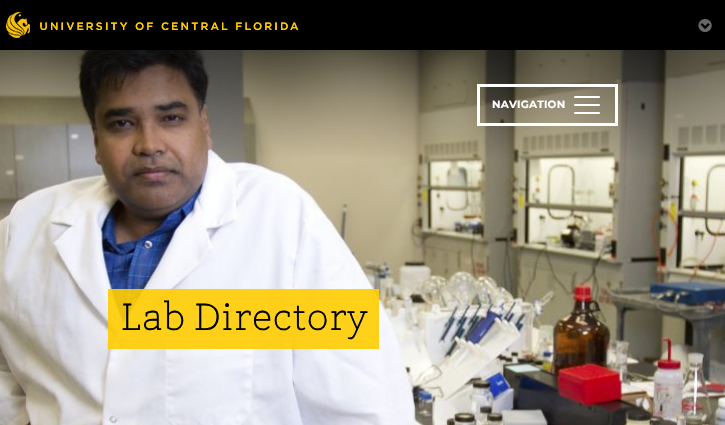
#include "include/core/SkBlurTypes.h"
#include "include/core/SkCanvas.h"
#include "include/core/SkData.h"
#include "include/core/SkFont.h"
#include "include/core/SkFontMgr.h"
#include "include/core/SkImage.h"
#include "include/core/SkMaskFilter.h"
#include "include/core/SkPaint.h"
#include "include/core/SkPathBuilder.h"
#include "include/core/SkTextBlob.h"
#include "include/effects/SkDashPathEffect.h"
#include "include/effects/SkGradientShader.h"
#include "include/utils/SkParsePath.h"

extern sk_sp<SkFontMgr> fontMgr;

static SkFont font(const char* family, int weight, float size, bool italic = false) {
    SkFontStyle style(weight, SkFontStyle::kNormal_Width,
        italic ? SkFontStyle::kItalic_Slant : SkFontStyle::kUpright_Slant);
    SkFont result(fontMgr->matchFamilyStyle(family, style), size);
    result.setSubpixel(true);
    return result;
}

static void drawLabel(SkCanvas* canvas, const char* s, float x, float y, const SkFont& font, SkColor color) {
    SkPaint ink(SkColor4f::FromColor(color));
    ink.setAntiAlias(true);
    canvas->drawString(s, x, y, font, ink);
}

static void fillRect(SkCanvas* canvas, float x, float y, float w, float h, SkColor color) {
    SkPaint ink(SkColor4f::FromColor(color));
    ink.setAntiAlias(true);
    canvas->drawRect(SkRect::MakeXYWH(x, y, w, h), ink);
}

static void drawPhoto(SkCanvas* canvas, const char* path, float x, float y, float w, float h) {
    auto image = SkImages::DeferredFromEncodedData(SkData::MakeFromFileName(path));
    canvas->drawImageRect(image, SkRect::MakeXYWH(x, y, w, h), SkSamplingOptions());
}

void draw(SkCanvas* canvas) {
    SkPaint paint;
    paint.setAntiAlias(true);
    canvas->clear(0xFFFFFFFF);
    fillRect(canvas, 0, 0, 725, 50, 0xFF000000);
    drawPhoto(canvas, "assets/img1.png", 6, 12, 293, 26);
    drawPhoto(canvas, "assets/img2.png", 698, 19, 14, 13);
    drawPhoto(canvas, "assets/img3.png", 0, 50, 725, 375);
    paint.setStroke(true);
    paint.setStrokeWidth(3);
    paint.setColor(0xFFFFFFFF);
    canvas->drawRect(SkRect::MakeXYWH(478.5f, 85.5f, 138, 39), paint);
    SkFont font1 = font("Montserrat", 700, 10.5f);
    drawLabel(canvas, "NAVIGATION", 492, 108, font1, 0xFFFFFFFF);
    drawPhoto(canvas, "assets/img4.png", 574, 96, 26, 18);
    fillRect(canvas, 108, 289, 271, 60, 0xE6FFCC00);
    SkFont font2 = font("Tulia", 400, 44);
    drawLabel(canvas, "Lab Directory", 120, 330, font2, 0xFF000000);
}
